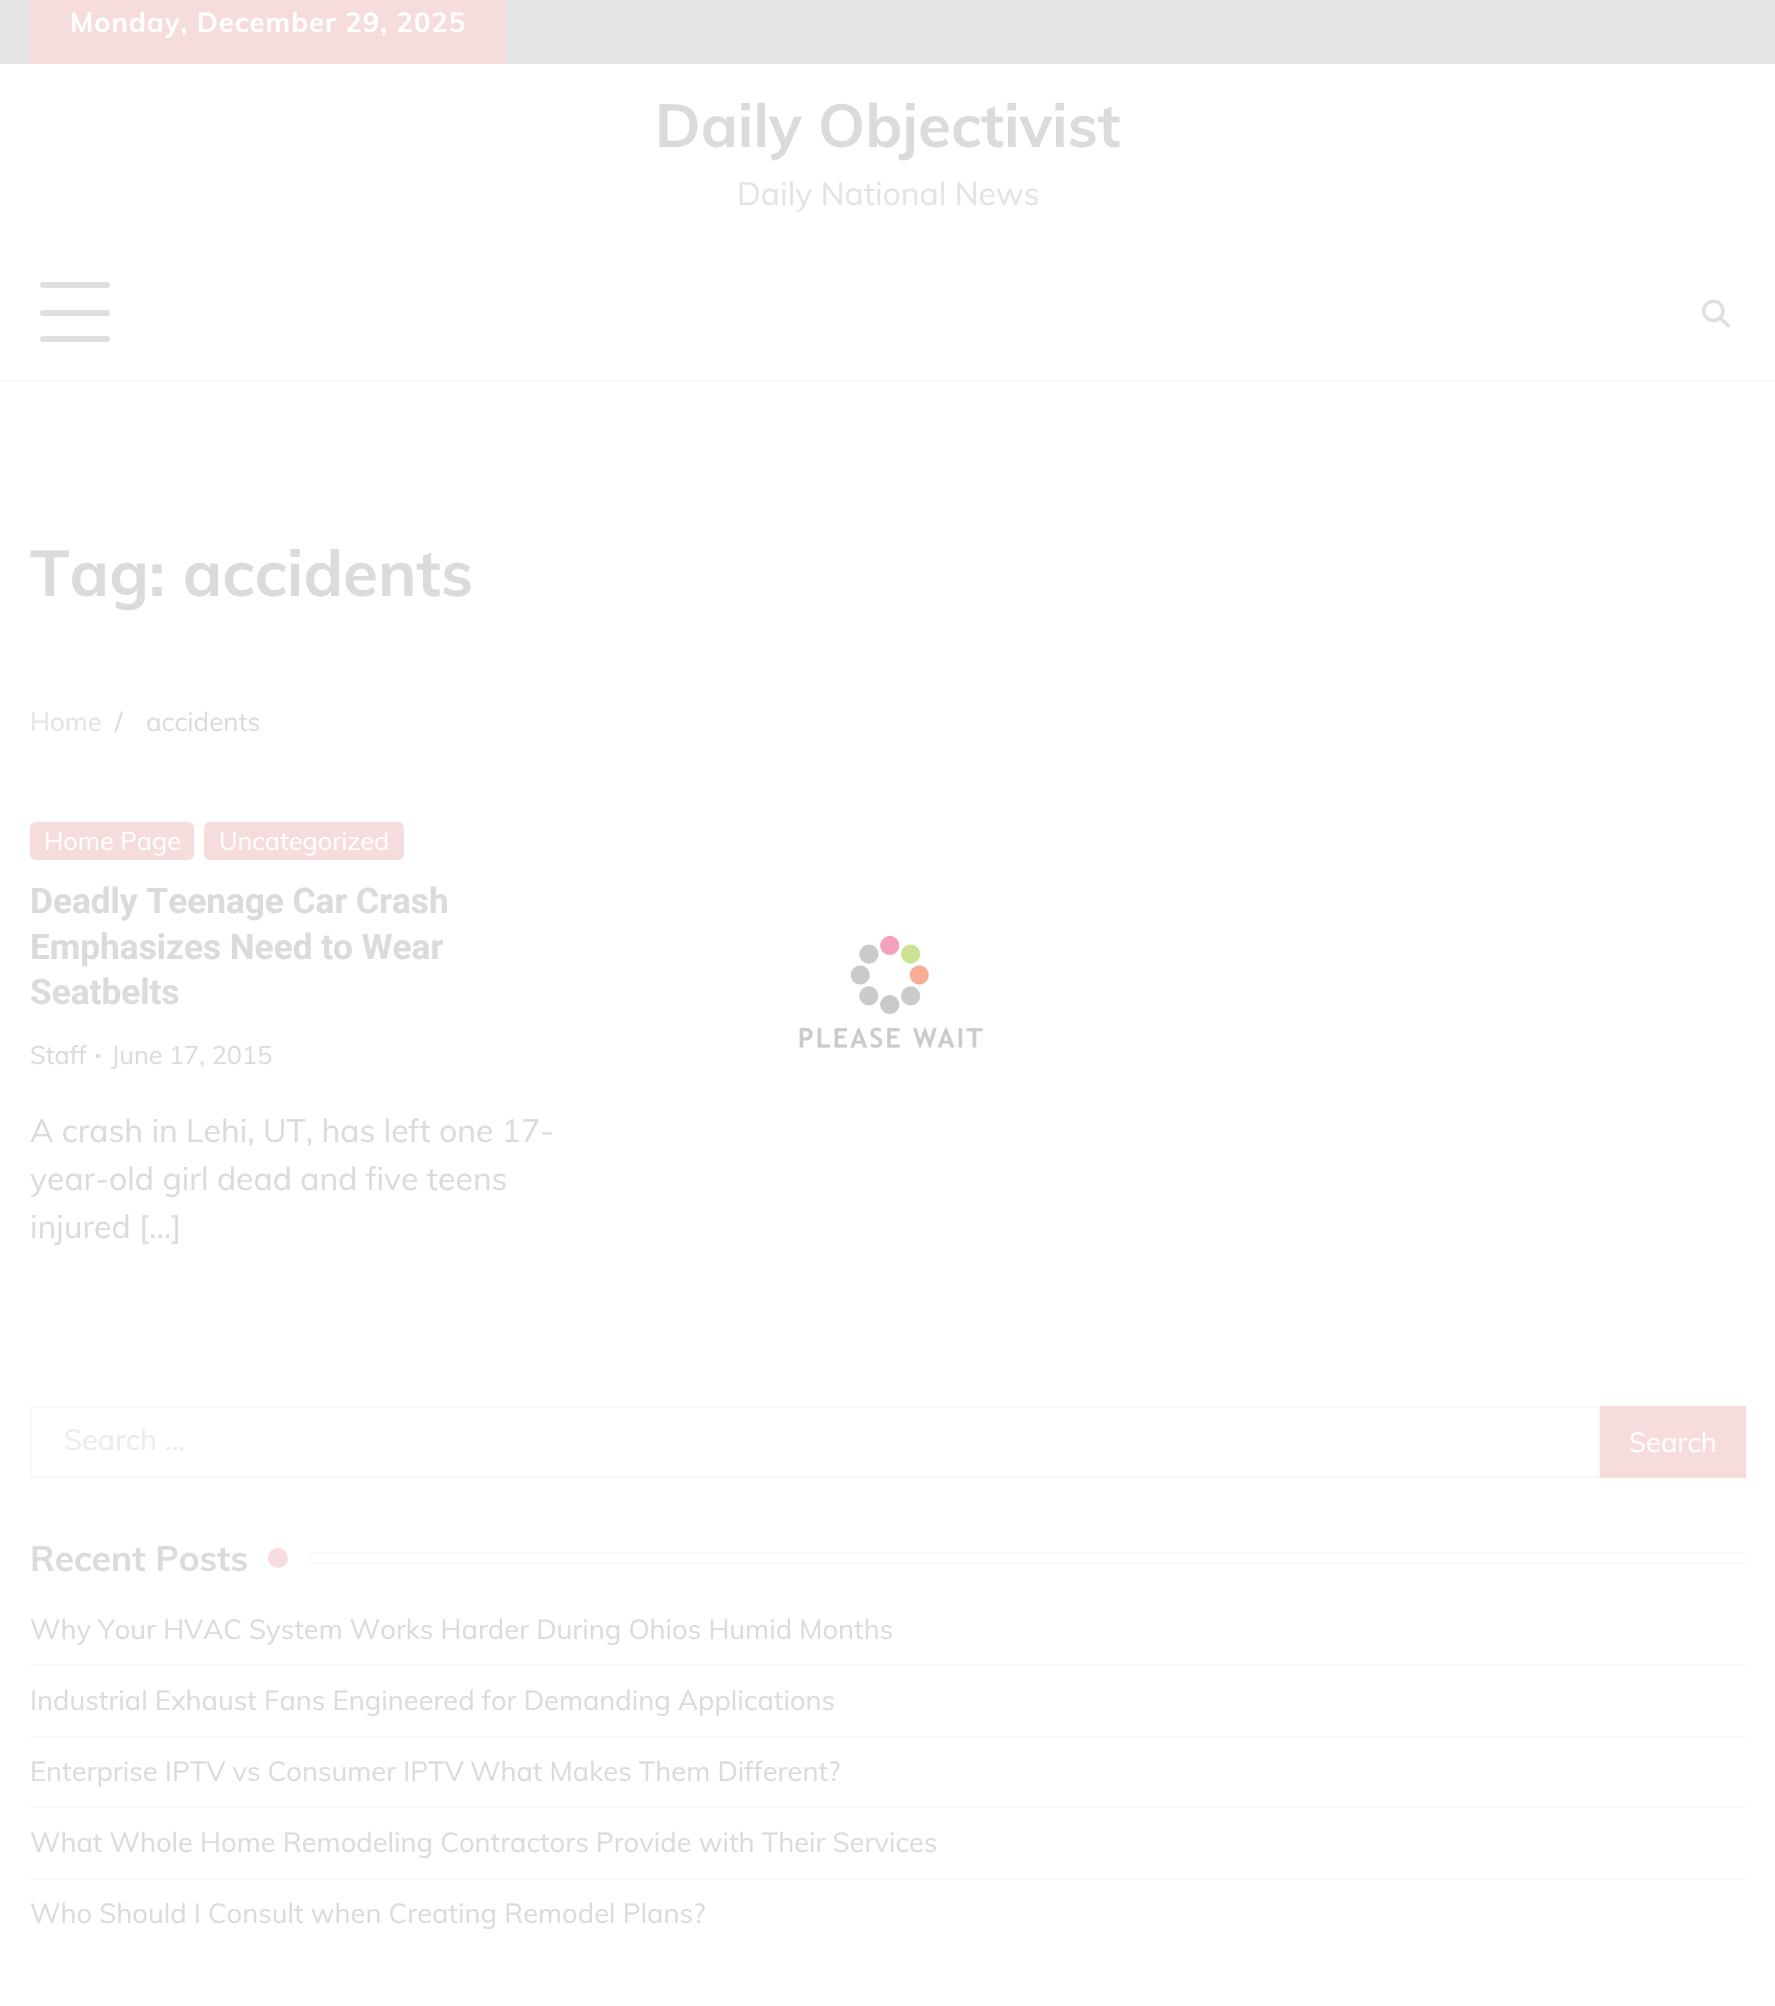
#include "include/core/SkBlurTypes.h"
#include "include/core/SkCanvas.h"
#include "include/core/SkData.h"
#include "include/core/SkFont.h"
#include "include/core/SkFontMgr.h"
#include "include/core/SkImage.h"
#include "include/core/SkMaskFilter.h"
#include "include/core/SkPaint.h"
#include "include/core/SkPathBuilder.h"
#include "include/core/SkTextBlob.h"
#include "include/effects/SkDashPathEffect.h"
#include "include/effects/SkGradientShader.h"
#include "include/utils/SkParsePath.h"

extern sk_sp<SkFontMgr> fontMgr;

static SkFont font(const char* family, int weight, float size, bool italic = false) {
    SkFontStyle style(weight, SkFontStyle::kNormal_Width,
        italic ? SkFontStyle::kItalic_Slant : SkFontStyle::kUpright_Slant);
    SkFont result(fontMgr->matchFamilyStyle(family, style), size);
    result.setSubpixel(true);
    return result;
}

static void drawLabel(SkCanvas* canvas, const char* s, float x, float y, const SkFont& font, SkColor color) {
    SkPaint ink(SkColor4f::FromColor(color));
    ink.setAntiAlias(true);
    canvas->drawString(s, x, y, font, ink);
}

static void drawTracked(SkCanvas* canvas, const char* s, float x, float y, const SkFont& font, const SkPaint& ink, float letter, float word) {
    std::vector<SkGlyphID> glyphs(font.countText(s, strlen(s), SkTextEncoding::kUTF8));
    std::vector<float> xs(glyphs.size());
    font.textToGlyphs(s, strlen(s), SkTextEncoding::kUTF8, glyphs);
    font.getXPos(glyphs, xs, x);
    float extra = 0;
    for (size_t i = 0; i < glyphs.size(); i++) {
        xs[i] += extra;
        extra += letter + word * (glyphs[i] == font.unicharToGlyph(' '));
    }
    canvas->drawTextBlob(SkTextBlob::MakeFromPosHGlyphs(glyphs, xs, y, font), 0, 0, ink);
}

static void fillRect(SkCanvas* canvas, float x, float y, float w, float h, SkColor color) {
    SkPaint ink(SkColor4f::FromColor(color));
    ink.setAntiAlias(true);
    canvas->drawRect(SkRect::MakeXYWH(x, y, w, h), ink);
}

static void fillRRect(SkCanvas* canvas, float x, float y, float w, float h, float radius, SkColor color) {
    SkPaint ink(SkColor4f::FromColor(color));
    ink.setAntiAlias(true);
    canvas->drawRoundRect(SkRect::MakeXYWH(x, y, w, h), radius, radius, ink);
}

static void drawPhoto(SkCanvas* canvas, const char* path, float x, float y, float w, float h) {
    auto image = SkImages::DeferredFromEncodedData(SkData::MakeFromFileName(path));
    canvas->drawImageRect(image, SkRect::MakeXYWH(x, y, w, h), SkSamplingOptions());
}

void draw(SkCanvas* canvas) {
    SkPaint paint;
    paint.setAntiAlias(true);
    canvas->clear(0xFFFFFFFF);
    fillRect(canvas, 0, 0, 1775, 64, 0xFFE5E5E5);
    fillRect(canvas, 30, 0, 476, 64, 0xFFF7DCDE);
    SkFont font1 = font("Muli", 700, 27.35f);
    paint.setColor(0xFFFFFFFF);
    drawTracked(canvas, "Monday, December 29, 2025", 70, 32, font1, paint, 1, 0);
    SkFont font2 = font("Muli", 700, 60);
    drawLabel(canvas, "Daily Objectivist", 655, 147, font2, 0xFFDBDBDB);
    SkFont font3 = font("Muli", 400, 32);
    drawLabel(canvas, "Daily National News", 737, 205, font3, 0xFFE4E4E4);
    fillRect(canvas, 0, 380, 1775, 2, 0xFFFAFAFA);
    fillRRect(canvas, 40, 282, 70, 6, 3, 0xFFDFDFDF);
    fillRRect(canvas, 40, 310, 70, 6, 3, 0xFFDFDFDF);
    fillRRect(canvas, 40, 336, 70, 6, 3, 0xFFDFDFDF);
    drawPhoto(canvas, "assets/img1.png", 1702, 299, 28, 29);
    SkFont font4 = font("Muli", 700, 64);
    drawLabel(canvas, "Tag: accidents", 30, 596, font4, 0xFFDBDBDB);
    SkFont font5 = font("Muli", 400, 26);
    drawLabel(canvas, "Home", 30, 731, font5, 0xFFE4E4E4);
    drawLabel(canvas, "/", 115, 731, font5, 0xFFDBDBDB);
    drawLabel(canvas, "accidents", 146, 731, font5, 0xFFDBDBDB);
    fillRRect(canvas, 30, 822, 164, 38, 6, 0xFFF7DCDE);
    SkFont font6 = font("Muli", 400, 25.25f);
    drawLabel(canvas, "Home Page", 44, 850, font6, 0xFFFFFFFF);
    fillRRect(canvas, 204, 822, 200, 38, 6, 0xFFF7DCDE);
    drawLabel(canvas, "Uncategorized", 219, 850, font6, 0xFFFFFFFF);
    SkFont font7 = font("Roboto", 700, 35.2f);
    drawLabel(canvas, "Deadly Teenage Car Crash", 30, 913, font7, 0xFFDBDBDB);
    drawLabel(canvas, "Emphasizes Need to Wear", 30, 959, font7, 0xFFDBDBDB);
    drawLabel(canvas, "Seatbelts", 30, 1004, font7, 0xFFDBDBDB);
    drawLabel(canvas, "Staff", 30, 1064, font6, 0xFFDBDBDB);
    fillRect(canvas, 96, 1054, 4, 4, 0xFFDFDFDF);
    drawLabel(canvas, "June 17, 2015", 111, 1064, font6, 0xFFDBDBDB);
    drawLabel(canvas, "A crash in Lehi, UT, has left one 17-", 30, 1142, font3, 0xFFDBDBDB);
    drawLabel(canvas, "year-old girl dead and five teens", 30, 1190, font3, 0xFFDBDBDB);
    drawLabel(canvas, "injured […]", 30, 1238, font3, 0xFFDBDBDB);
    paint.setStroke(true);
    paint.setStrokeWidth(2);
    paint.setColor(0xFFF9F8F9);
    canvas->drawRect(SkRect::MakeXYWH(31, 1407, 1568, 70), paint);
    SkFont font8 = font("Muli", 400, 29);
    drawLabel(canvas, "Search …", 64, 1450, font8, 0xFFECECEC);
    fillRect(canvas, 1600, 1406, 146, 72, 0xFFF7DCDE);
    SkFont font9 = font("Muli", 400, 27.35f);
    drawLabel(canvas, "Search", 1629, 1452, font9, 0xFFFFFFFF);
    SkFont font10 = font("Muli", 700, 35.2f);
    drawLabel(canvas, "Recent Posts", 30, 1571, font10, 0xFFDBDBDB);
    paint.setStroke(false);
    paint.setColor(0xFFF7DCDE);
    canvas->drawCircle(278, 1558, 10, paint);
    fillRect(canvas, 308, 1552, 1438, 2, 0xFFFAFAFA);
    fillRect(canvas, 308, 1562, 1438, 2, 0xFFFAFAFA);
    fillRect(canvas, 30, 1664, 1716, 2, 0xFFFAFAFA);
    drawLabel(canvas, "Why Your HVAC System Works Harder During Ohios Humid Months", 30, 1639, font9, 0xFFDBDBDB);
    fillRect(canvas, 30, 1736, 1716, 2, 0xFFFAFAFA);
    drawLabel(canvas, "Industrial Exhaust Fans Engineered for Demanding Applications", 30, 1710, font9, 0xFFDBDBDB);
    fillRect(canvas, 30, 1806, 1716, 2, 0xFFFAFAFA);
    drawLabel(canvas, "Enterprise IPTV vs Consumer IPTV", 30, 1781, font9, 0xFFDBDBDB);
    drawLabel(canvas, "What Makes Them Different?", 470, 1781, font9, 0xFFDBDBDB);
    fillRect(canvas, 30, 1878, 1716, 2, 0xFFFAFAFA);
    drawLabel(canvas, "What Whole Home Remodeling Contractors Provide with Their Services", 30, 1852, font9, 0xFFDBDBDB);
    drawLabel(canvas, "Who Should I Consult when Creating Remodel Plans?", 30, 1923, font9, 0xFFDBDBDB);
    drawPhoto(canvas, "assets/img2.png", 799, 935, 184, 113);
}
